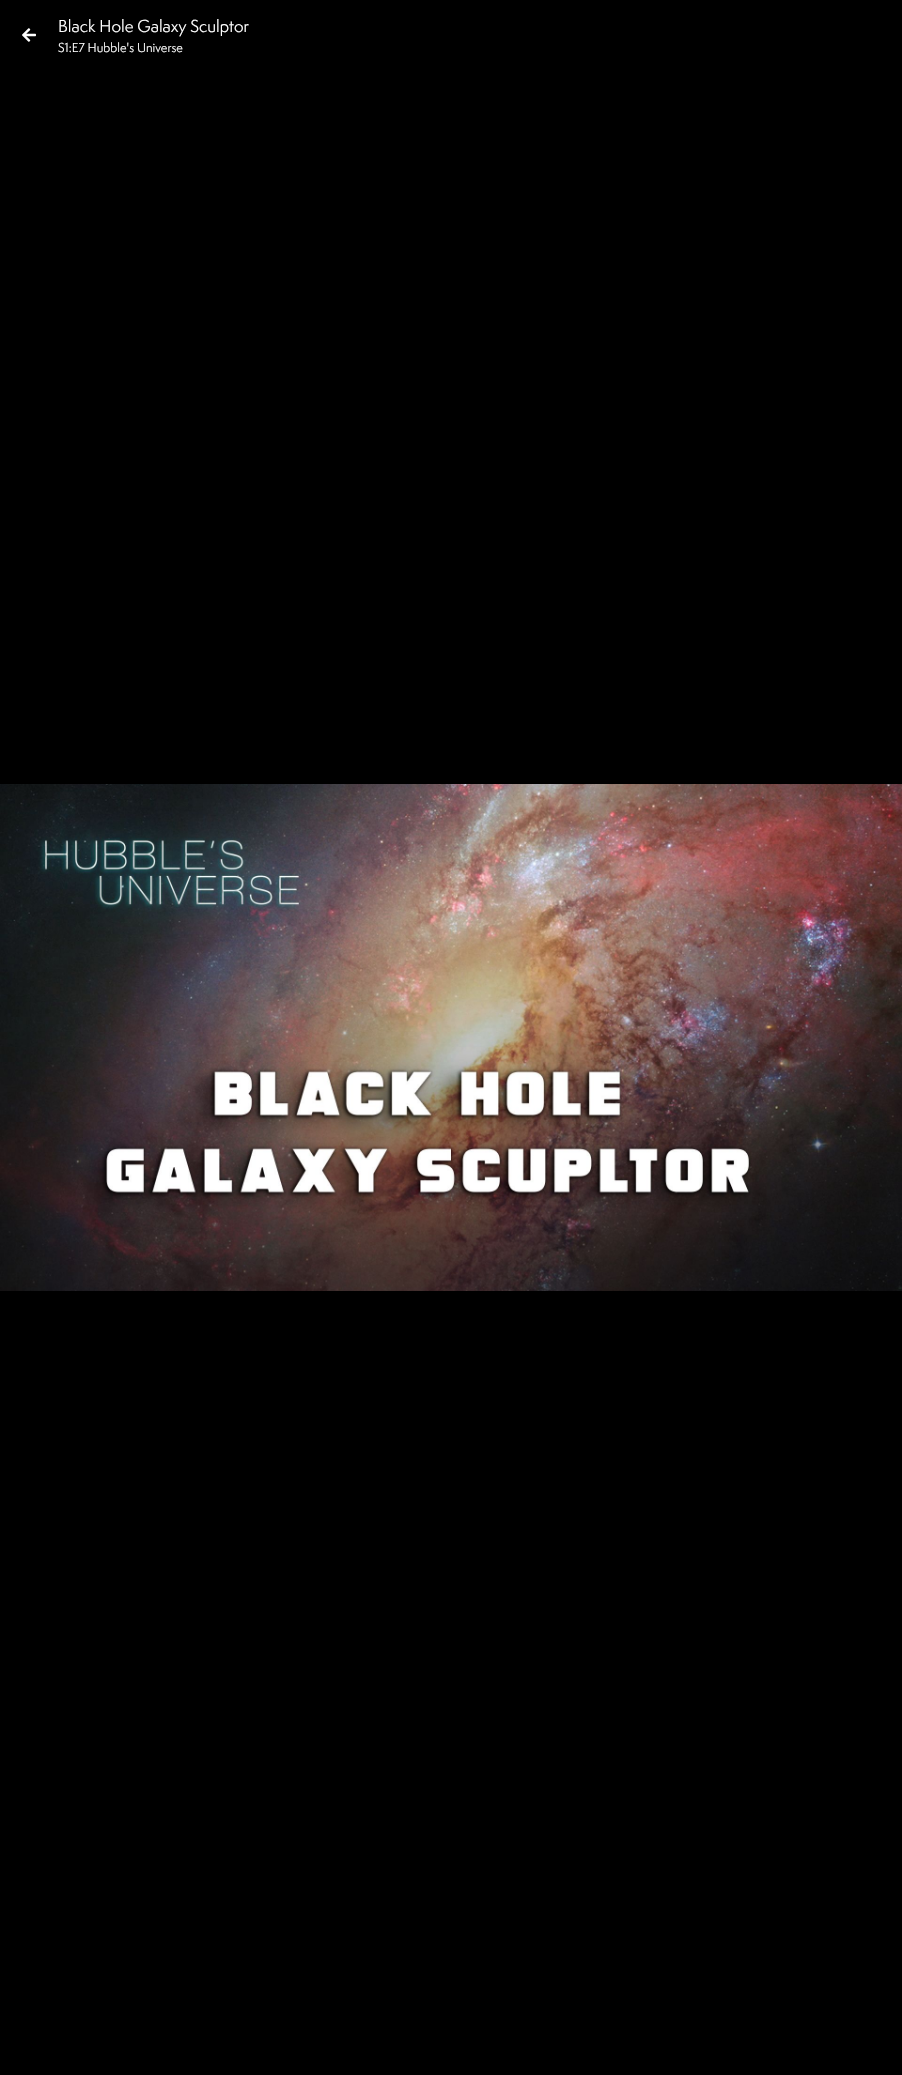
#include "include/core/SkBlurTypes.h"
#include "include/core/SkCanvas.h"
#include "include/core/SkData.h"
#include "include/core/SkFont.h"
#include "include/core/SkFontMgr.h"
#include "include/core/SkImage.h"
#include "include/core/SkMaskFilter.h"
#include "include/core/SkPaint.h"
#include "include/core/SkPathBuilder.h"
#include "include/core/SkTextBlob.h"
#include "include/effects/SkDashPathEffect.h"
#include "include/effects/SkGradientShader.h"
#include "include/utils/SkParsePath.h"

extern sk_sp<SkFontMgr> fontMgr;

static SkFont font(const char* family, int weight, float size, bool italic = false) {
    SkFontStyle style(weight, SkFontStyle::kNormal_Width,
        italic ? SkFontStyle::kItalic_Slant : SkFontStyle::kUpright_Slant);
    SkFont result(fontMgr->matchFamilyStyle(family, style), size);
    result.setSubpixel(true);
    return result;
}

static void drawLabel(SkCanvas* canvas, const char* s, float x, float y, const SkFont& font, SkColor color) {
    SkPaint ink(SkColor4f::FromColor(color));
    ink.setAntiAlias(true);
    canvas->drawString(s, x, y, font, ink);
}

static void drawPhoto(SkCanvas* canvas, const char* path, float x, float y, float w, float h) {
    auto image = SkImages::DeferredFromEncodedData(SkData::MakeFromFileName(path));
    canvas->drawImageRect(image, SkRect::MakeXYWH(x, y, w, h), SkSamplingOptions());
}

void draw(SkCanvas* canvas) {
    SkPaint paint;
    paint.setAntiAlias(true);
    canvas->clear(0xFF000000);
    drawPhoto(canvas, "assets/img1.png", 22, 28, 14, 14);
    SkFont font1 = font("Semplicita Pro", 400, 16);
    drawLabel(canvas, "Black Hole Galaxy Sculptor", 58, 32, font1, 0xFFFFFFFF);
    SkFont font2 = font("Semplicita Pro", 400, 12);
    drawLabel(canvas, "S1:E7 Hubble's Universe", 58, 52, font2, 0xFFFFFFFF);
    drawPhoto(canvas, "assets/img2.png", 0, 784, 902, 507);
}
